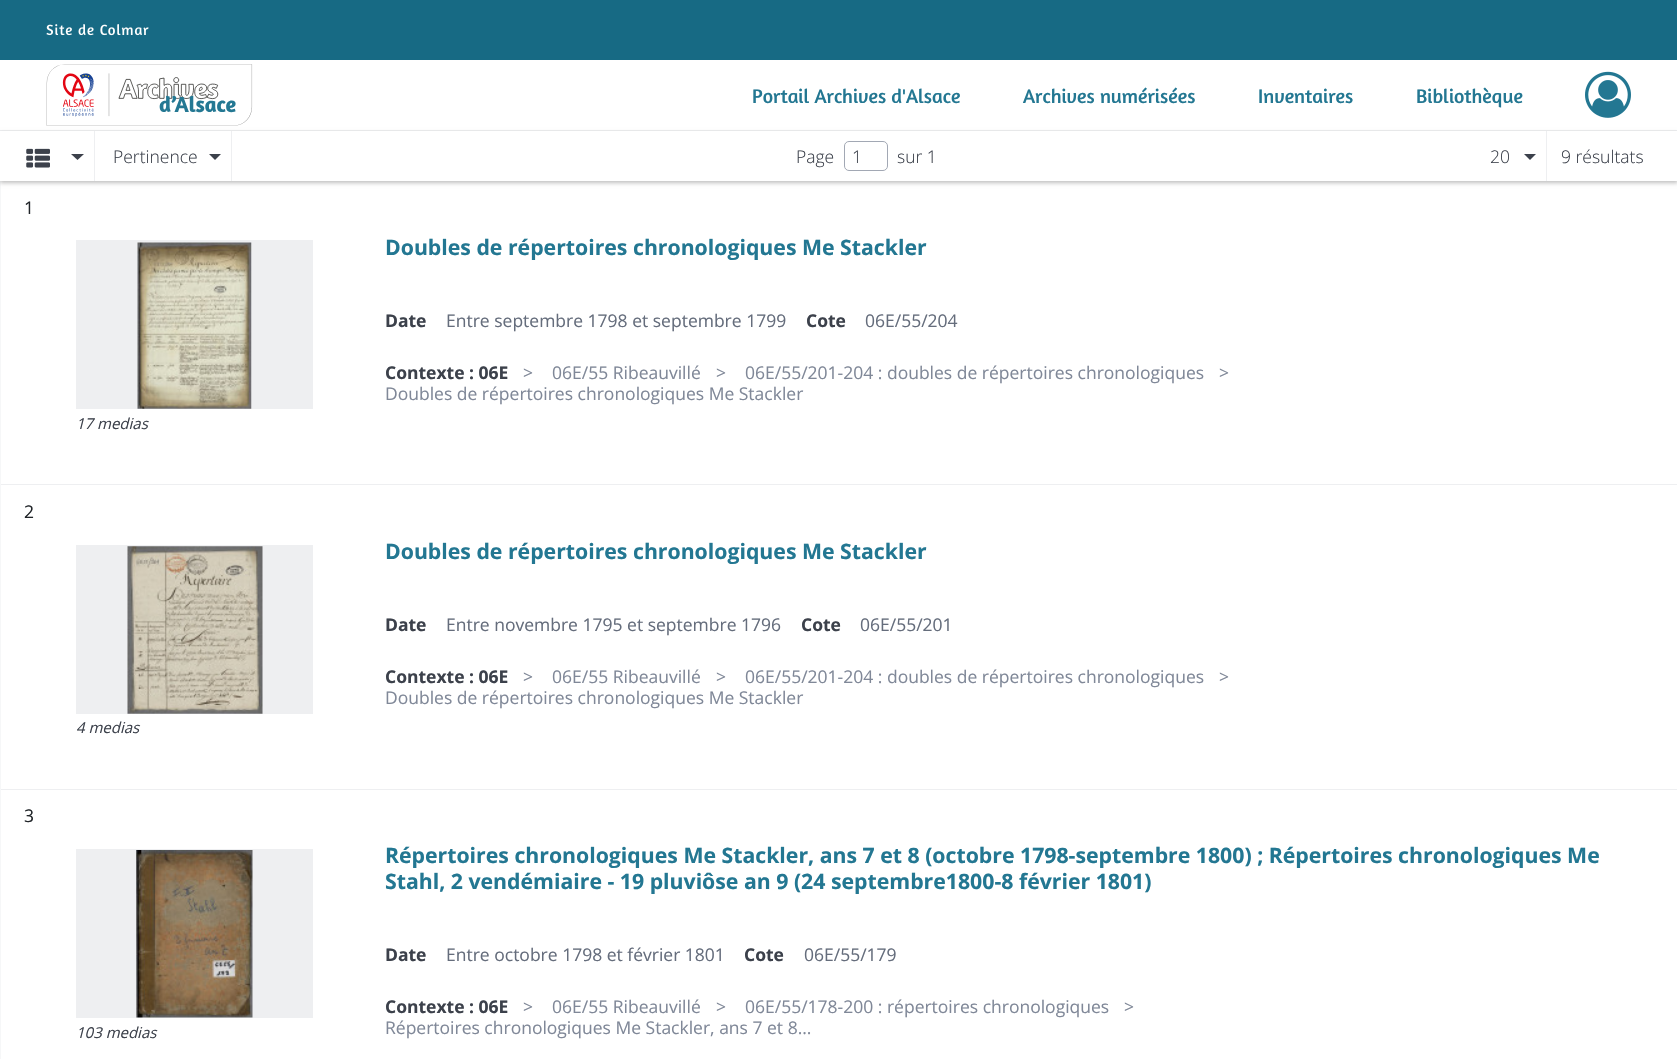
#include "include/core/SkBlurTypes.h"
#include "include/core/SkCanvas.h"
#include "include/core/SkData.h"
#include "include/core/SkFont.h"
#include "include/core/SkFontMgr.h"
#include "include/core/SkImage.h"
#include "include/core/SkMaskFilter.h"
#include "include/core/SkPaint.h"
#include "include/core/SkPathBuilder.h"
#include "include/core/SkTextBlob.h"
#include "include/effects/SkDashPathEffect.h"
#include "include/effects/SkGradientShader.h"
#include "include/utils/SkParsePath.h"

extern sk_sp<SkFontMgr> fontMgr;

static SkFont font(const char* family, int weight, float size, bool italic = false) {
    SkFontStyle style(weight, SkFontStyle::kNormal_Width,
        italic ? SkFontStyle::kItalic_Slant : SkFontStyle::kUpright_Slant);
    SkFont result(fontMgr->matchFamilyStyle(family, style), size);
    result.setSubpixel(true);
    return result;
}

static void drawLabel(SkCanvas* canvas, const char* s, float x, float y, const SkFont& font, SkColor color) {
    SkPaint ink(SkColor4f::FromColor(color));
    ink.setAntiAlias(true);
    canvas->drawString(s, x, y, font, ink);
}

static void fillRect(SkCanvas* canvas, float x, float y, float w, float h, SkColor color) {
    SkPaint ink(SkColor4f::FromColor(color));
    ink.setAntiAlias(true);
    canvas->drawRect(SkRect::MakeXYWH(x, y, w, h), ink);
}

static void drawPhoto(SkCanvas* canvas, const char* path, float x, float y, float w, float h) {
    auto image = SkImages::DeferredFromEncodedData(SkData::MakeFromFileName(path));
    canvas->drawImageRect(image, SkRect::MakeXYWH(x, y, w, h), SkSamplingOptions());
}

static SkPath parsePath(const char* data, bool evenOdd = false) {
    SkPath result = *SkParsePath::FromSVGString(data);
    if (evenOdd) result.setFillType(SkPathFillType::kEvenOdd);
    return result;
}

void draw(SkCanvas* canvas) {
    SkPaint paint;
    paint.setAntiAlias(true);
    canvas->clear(0xFFFFFFFF);
    fillRect(canvas, 0, 0, 1677, 60, 0xFF176A84);
    drawPhoto(canvas, "assets/img1.png", 46, 24, 103, 12);
    fillRect(canvas, 0, 130, 1677, 1, 0xFFEEEFF1);
    drawPhoto(canvas, "assets/img2.png", 46, 64, 207, 62);
    SkFont font1 = font("Amaranth", 400, 20);
    drawLabel(canvas, "Portail Archives d'Alsace", 752, 103, font1, 0xFF237792);
    drawLabel(canvas, "Archives numérisées", 1023, 103, font1, 0xFF237792);
    drawLabel(canvas, "Inventaires", 1258, 103, font1, 0xFF237792);
    drawLabel(canvas, "Bibliothèque", 1416, 103, font1, 0xFF237792);
    drawPhoto(canvas, "assets/img3.png", 1585, 71, 46, 47);
    fillRect(canvas, 0, 181, 1, 878, 0xFFF6F7F8);
    paint.setColor(0x40000000);
    paint.setMaskFilter(SkMaskFilter::MakeBlur(kNormal_SkBlurStyle, 2));
    canvas->drawRect(SkRect::MakeXYWH(0, 133, 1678, 50), paint);
    paint.setMaskFilter(nullptr);
    fillRect(canvas, 0, 131, 1677, 50, 0xFFFFFFFF);
    fillRect(canvas, 94, 131, 1, 50, 0xFFEEEFF1);
    drawPhoto(canvas, "assets/img4.png", 26, 148, 24, 20);
    paint.setColor(0xFF3C414B);
    canvas->drawPath(parsePath("M71 154H84L77.5 160Z"), paint);
    fillRect(canvas, 231, 131, 1, 50, 0xFFEEEFF1);
    SkFont font2 = font("Open Sans", 300, 17.5f);
    drawLabel(canvas, "Pertinence", 113, 163, font2, 0xFF3C414B);
    canvas->drawPath(parsePath("M209 154H221L215 160Z"), paint);
    drawLabel(canvas, "Page", 796, 163, font2, 0xFF3C414B);
    paint.setStroke(true);
    paint.setStrokeWidth(1);
    paint.setColor(0xFFA2A8B4);
    canvas->drawRoundRect(SkRect::MakeXYWH(844.5f, 141.5f, 43, 29), 4.5f, 4.5f, paint);
    drawLabel(canvas, "1", 852, 163, font2, 0xFF3C414B);
    drawLabel(canvas, "sur 1", 897, 163, font2, 0xFF3C414B);
    fillRect(canvas, 1546, 131, 1, 50, 0xFFEEEFF1);
    drawLabel(canvas, "20", 1490, 163, font2, 0xFF3C414B);
    paint.setStroke(false);
    paint.setColor(0xFF3C414B);
    canvas->drawPath(parsePath("M1524 154H1536L1530 160Z"), paint);
    drawLabel(canvas, "9 résultats", 1561, 163, font2, 0xFF3C414B);
    fillRect(canvas, 1, 484, 1676, 1, 0xFFEEEFF1);
    SkFont font3 = font("Open Sans", 400, 17.5f);
    drawLabel(canvas, "1", 24, 214, font3, 0xFF212529);
    fillRect(canvas, 76, 240, 237, 169, 0xFFEEEFF1);
    drawPhoto(canvas, "assets/img5.png", 137, 242, 115, 167);
    SkFont font4 = font("Open Sans", 400, 15, true);
    drawLabel(canvas, "17 medias", 76, 429, font4, 0xFF3C414B);
    SkFont font5 = font("Open Sans", 700, 21.25f);
    drawLabel(canvas, "Doubles de répertoires chronologiques Me Stackler", 385, 255, font5, 0xFF237792);
    SkFont font6 = font("Open Sans", 700, 17.5f);
    drawLabel(canvas, "Date", 385, 327, font6, 0xFF3C414B);
    drawLabel(canvas, "Entre septembre 1798 et septembre 1799", 446, 327, font3, 0xFF656D7C);
    drawLabel(canvas, "Cote", 806, 327, font6, 0xFF3C414B);
    drawLabel(canvas, "06E/55/204", 865, 327, font3, 0xFF656D7C);
    drawLabel(canvas, "Contexte : 06E", 385, 379, font6, 0xFF3C414B);
    drawLabel(canvas, ">", 523, 379, font3, 0xFF808898);
    drawLabel(canvas, "06E/55 Ribeauvillé", 552, 379, font3, 0xFF808898);
    drawLabel(canvas, ">", 716, 379, font3, 0xFF808898);
    drawLabel(canvas, "06E/55/201-204 : doubles de répertoires chronologiques", 745, 379, font3, 0xFF808898);
    drawLabel(canvas, ">", 1219, 379, font3, 0xFF808898);
    drawLabel(canvas, "Doubles de répertoires chronologiques Me Stackler", 385, 400, font3, 0xFF808898);
    fillRect(canvas, 1, 789, 1676, 1, 0xFFEEEFF1);
    drawLabel(canvas, "2", 24, 518, font3, 0xFF212529);
    fillRect(canvas, 76, 545, 237, 169, 0xFFEEEFF1);
    drawPhoto(canvas, "assets/img6.png", 127, 546, 136, 168);
    drawLabel(canvas, "4 medias", 76, 733, font4, 0xFF3C414B);
    drawLabel(canvas, "Doubles de répertoires chronologiques Me Stackler", 385, 559, font5, 0xFF237792);
    drawLabel(canvas, "Date", 385, 631, font6, 0xFF3C414B);
    drawLabel(canvas, "Entre novembre 1795 et septembre 1796", 446, 631, font3, 0xFF656D7C);
    drawLabel(canvas, "Cote", 801, 631, font6, 0xFF3C414B);
    drawLabel(canvas, "06E/55/201", 860, 631, font3, 0xFF656D7C);
    drawLabel(canvas, "Contexte : 06E", 385, 683, font6, 0xFF3C414B);
    drawLabel(canvas, ">", 523, 683, font3, 0xFF808898);
    drawLabel(canvas, "06E/55 Ribeauvillé", 552, 683, font3, 0xFF808898);
    drawLabel(canvas, ">", 716, 683, font3, 0xFF808898);
    drawLabel(canvas, "06E/55/201-204 : doubles de répertoires chronologiques", 745, 683, font3, 0xFF808898);
    drawLabel(canvas, ">", 1219, 683, font3, 0xFF808898);
    drawLabel(canvas, "Doubles de répertoires chronologiques Me Stackler", 385, 704, font3, 0xFF808898);
    drawLabel(canvas, "3", 24, 822, font3, 0xFF212529);
    fillRect(canvas, 76, 849, 237, 169, 0xFFEEEFF1);
    drawPhoto(canvas, "assets/img7.png", 136, 850, 117, 168);
    drawLabel(canvas, "103 medias", 76, 1038, font4, 0xFF3C414B);
    drawLabel(canvas, "Répertoires chronologiques Me Stackler, ans 7 et 8 (octobre 1798-septembre 1800) ; Répertoires chronologiques Me", 385, 863, font5, 0xFF237792);
    drawLabel(canvas, "Stahl, 2 vendémiaire - 19 pluviôse an 9 (24 septembre1800-8 février 1801)", 385, 889, font5, 0xFF237792);
    drawLabel(canvas, "Date", 385, 961, font6, 0xFF3C414B);
    drawLabel(canvas, "Entre octobre 1798 et février 1801", 446, 961, font3, 0xFF656D7C);
    drawLabel(canvas, "Cote", 744, 961, font6, 0xFF3C414B);
    drawLabel(canvas, "06E/55/179", 804, 961, font3, 0xFF656D7C);
    drawLabel(canvas, "Contexte : 06E", 385, 1013, font6, 0xFF3C414B);
    drawLabel(canvas, ">", 523, 1013, font3, 0xFF808898);
    drawLabel(canvas, "06E/55 Ribeauvillé", 552, 1013, font3, 0xFF808898);
    drawLabel(canvas, ">", 716, 1013, font3, 0xFF808898);
    drawLabel(canvas, "06E/55/178-200 : répertoires chronologiques", 745, 1013, font3, 0xFF808898);
    drawLabel(canvas, ">", 1124, 1013, font3, 0xFF808898);
    drawLabel(canvas, "Répertoires chronologiques Me Stackler, ans 7 et 8...", 385, 1034, font3, 0xFF808898);
}
